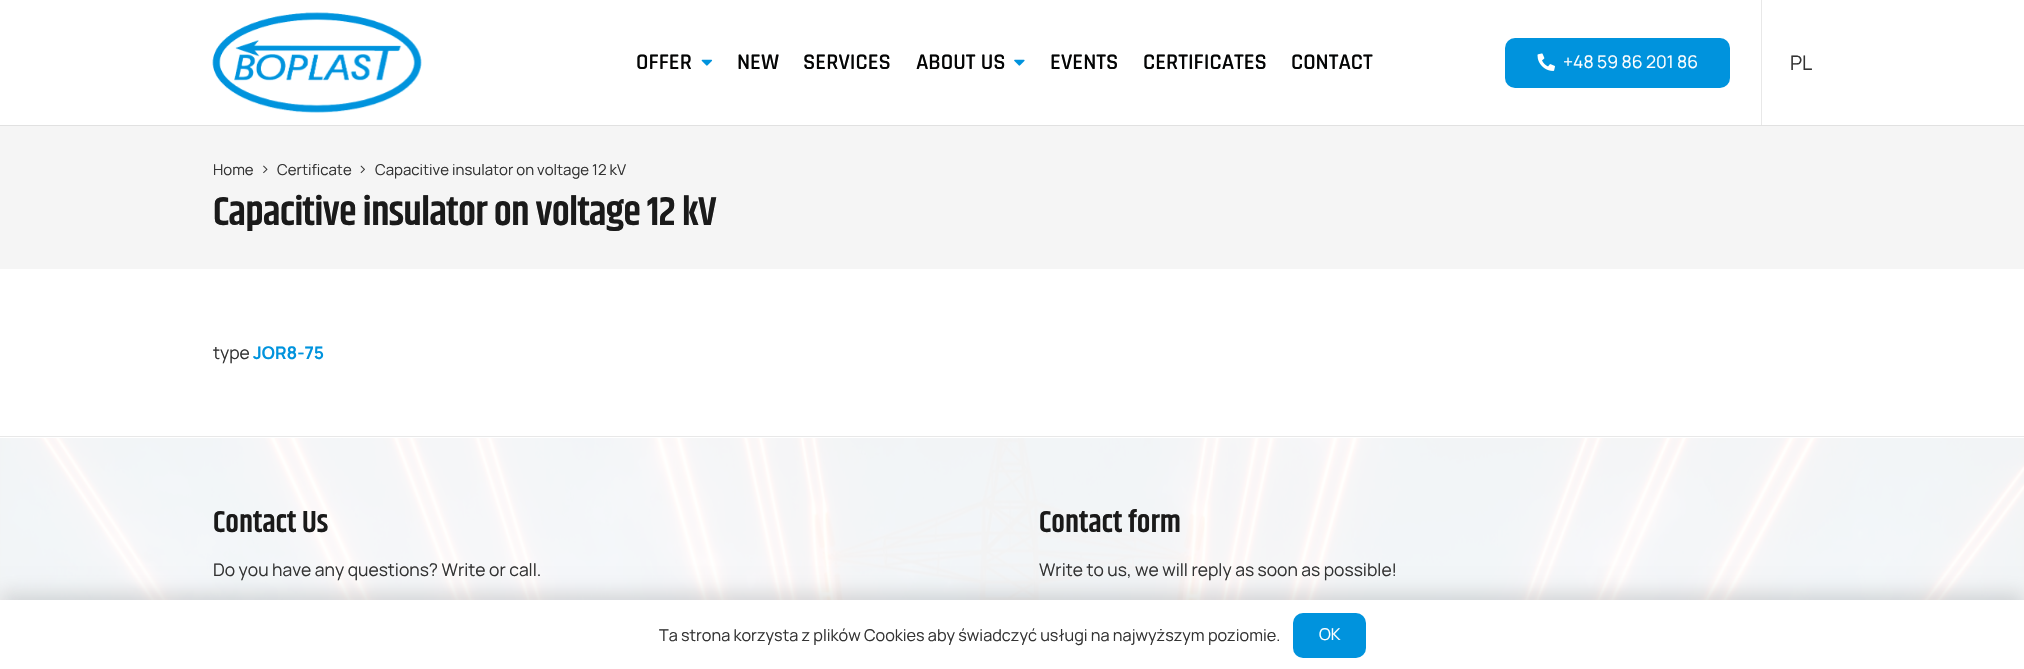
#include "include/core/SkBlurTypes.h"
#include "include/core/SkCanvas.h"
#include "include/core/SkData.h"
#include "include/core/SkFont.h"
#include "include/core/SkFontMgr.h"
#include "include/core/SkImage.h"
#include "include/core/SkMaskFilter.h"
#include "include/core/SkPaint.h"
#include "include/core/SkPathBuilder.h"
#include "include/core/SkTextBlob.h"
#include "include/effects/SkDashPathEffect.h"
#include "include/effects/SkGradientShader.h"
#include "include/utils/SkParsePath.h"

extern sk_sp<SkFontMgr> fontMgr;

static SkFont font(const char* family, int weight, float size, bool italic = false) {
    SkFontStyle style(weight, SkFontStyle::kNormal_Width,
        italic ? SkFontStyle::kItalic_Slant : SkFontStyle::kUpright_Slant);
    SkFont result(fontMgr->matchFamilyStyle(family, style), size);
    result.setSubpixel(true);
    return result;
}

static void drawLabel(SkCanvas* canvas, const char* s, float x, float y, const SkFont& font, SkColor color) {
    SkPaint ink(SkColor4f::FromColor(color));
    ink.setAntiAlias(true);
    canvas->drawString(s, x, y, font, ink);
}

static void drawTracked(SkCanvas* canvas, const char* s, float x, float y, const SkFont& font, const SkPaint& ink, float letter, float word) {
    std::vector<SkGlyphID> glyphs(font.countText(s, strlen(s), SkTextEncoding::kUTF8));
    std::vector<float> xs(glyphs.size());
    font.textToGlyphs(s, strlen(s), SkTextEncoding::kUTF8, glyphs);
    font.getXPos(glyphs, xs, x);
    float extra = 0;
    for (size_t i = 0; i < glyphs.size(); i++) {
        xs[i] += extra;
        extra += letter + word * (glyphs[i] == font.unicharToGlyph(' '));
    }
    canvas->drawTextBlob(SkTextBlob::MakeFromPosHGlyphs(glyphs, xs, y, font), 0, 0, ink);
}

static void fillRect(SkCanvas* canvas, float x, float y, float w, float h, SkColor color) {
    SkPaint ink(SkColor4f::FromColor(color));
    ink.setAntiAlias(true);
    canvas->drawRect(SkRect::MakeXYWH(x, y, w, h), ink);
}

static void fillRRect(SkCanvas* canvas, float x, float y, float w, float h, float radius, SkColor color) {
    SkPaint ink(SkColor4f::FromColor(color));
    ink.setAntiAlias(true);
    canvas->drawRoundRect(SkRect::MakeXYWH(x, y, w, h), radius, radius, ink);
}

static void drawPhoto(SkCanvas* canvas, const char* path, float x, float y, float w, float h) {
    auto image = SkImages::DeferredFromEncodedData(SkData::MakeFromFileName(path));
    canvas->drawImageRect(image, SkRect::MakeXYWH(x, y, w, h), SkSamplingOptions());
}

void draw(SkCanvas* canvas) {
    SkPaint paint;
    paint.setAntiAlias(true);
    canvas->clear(0xFFFFFFFF);
    fillRect(canvas, 0, 125, 2024, 1, 0xFFE1E1E1);
    drawPhoto(canvas, "assets/img1.png", 212, 12, 210, 101);
    SkFont font1 = font("Rajdhani", 600, 22.5f);
    drawLabel(canvas, "OFFER", 636, 69, font1, 0xFF040505);
    drawPhoto(canvas, "assets/img2.png", 701, 59, 12, 7);
    drawLabel(canvas, "NEW", 737, 69, font1, 0xFF040505);
    drawLabel(canvas, "SERVICES", 803, 69, font1, 0xFF040505);
    drawLabel(canvas, "ABOUT US", 916, 69, font1, 0xFF040505);
    drawPhoto(canvas, "assets/img3.png", 1014, 59, 11, 7);
    drawLabel(canvas, "EVENTS", 1050, 69, font1, 0xFF040505);
    drawLabel(canvas, "CERTIFICATES", 1143, 69, font1, 0xFF040505);
    drawLabel(canvas, "CONTACT", 1291, 69, font1, 0xFF040505);
    fillRRect(canvas, 1505, 38, 225, 50, 10, 0xFF0093DD);
    drawPhoto(canvas, "assets/img4.png", 1537, 53, 18, 18);
    SkFont font2 = font("Manrope", 400, 17.5f);
    drawLabel(canvas, "+48 59 86 201 86", 1563, 68, font2, 0xFFFFFFFF);
    fillRect(canvas, 1761, 0, 1, 125, 0xFFE8E8E8);
    SkFont font3 = font("Manrope", 400, 20);
    drawLabel(canvas, "PL", 1790, 70, font3, 0xFF333333);
    fillRect(canvas, 0, 126, 2024, 143, 0xFFF5F5F5);
    SkFont font4 = font("Manrope", 400, 15);
    drawLabel(canvas, "Home", 213, 175, font4, 0xFF333333);
    drawPhoto(canvas, "assets/img5.png", 263, 165, 5, 9);
    drawLabel(canvas, "Certificate", 277, 175, font4, 0xFF333333);
    drawPhoto(canvas, "assets/img6.png", 360, 165, 5, 9);
    drawLabel(canvas, "Capacitive insulator on voltage 12 kV", 375, 175, font4, 0xFF333333);
    SkFont font5 = font("Khand", 600, 40.5f);
    paint.setColor(0xFF1A1A1A);
    drawTracked(canvas, "Capacitive insulator on voltage 12 kV", 213, 225, font5, paint, -0.8f, 0);
    drawLabel(canvas, "type", 213, 359, font2, 0xFF333333);
    SkFont font6 = font("Manrope", 700, 17.5f);
    drawLabel(canvas, "JOR8-75", 253, 359, font6, 0xFF0093DD);
    fillRect(canvas, 0, 436, 2024, 1, 0xFFE8E8E8);
    drawPhoto(canvas, "assets/img7.png", 0, 438, 2024, 162);
    SkFont font7 = font("Khand", 600, 30.5f);
    drawLabel(canvas, "Contact Us", 213, 532, font7, 0xFF1A1A1A);
    drawLabel(canvas, "Do you have any questions? Write or call.", 213, 576, font2, 0xFF333333);
    drawLabel(canvas, "Contact form", 1039, 532, font7, 0xFF1A1A1A);
    drawLabel(canvas, "Write to us, we will reply as soon as possible!", 1039, 576, font2, 0xFF333333);
    paint.setColor(0x26000000);
    paint.setMaskFilter(SkMaskFilter::MakeBlur(kNormal_SkBlurStyle, 9.5f));
    canvas->drawRect(SkRect::MakeXYWH(0, 594, 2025, 70), paint);
    paint.setMaskFilter(nullptr);
    fillRect(canvas, 0, 600, 2024, 69, 0xFFFFFFFF);
    SkFont font8 = font("Manrope", 400, 16.25f);
    drawLabel(canvas, "Ta strona korzysta z plików Cookies aby świadczyć usługi na najwyższym poziomie.", 659, 641, font8, 0xFF333333);
    fillRRect(canvas, 1293, 613, 73, 45, 10, 0xFF0093DD);
    drawLabel(canvas, "OK", 1319, 640, font8, 0xFFFFFFFF);
}
